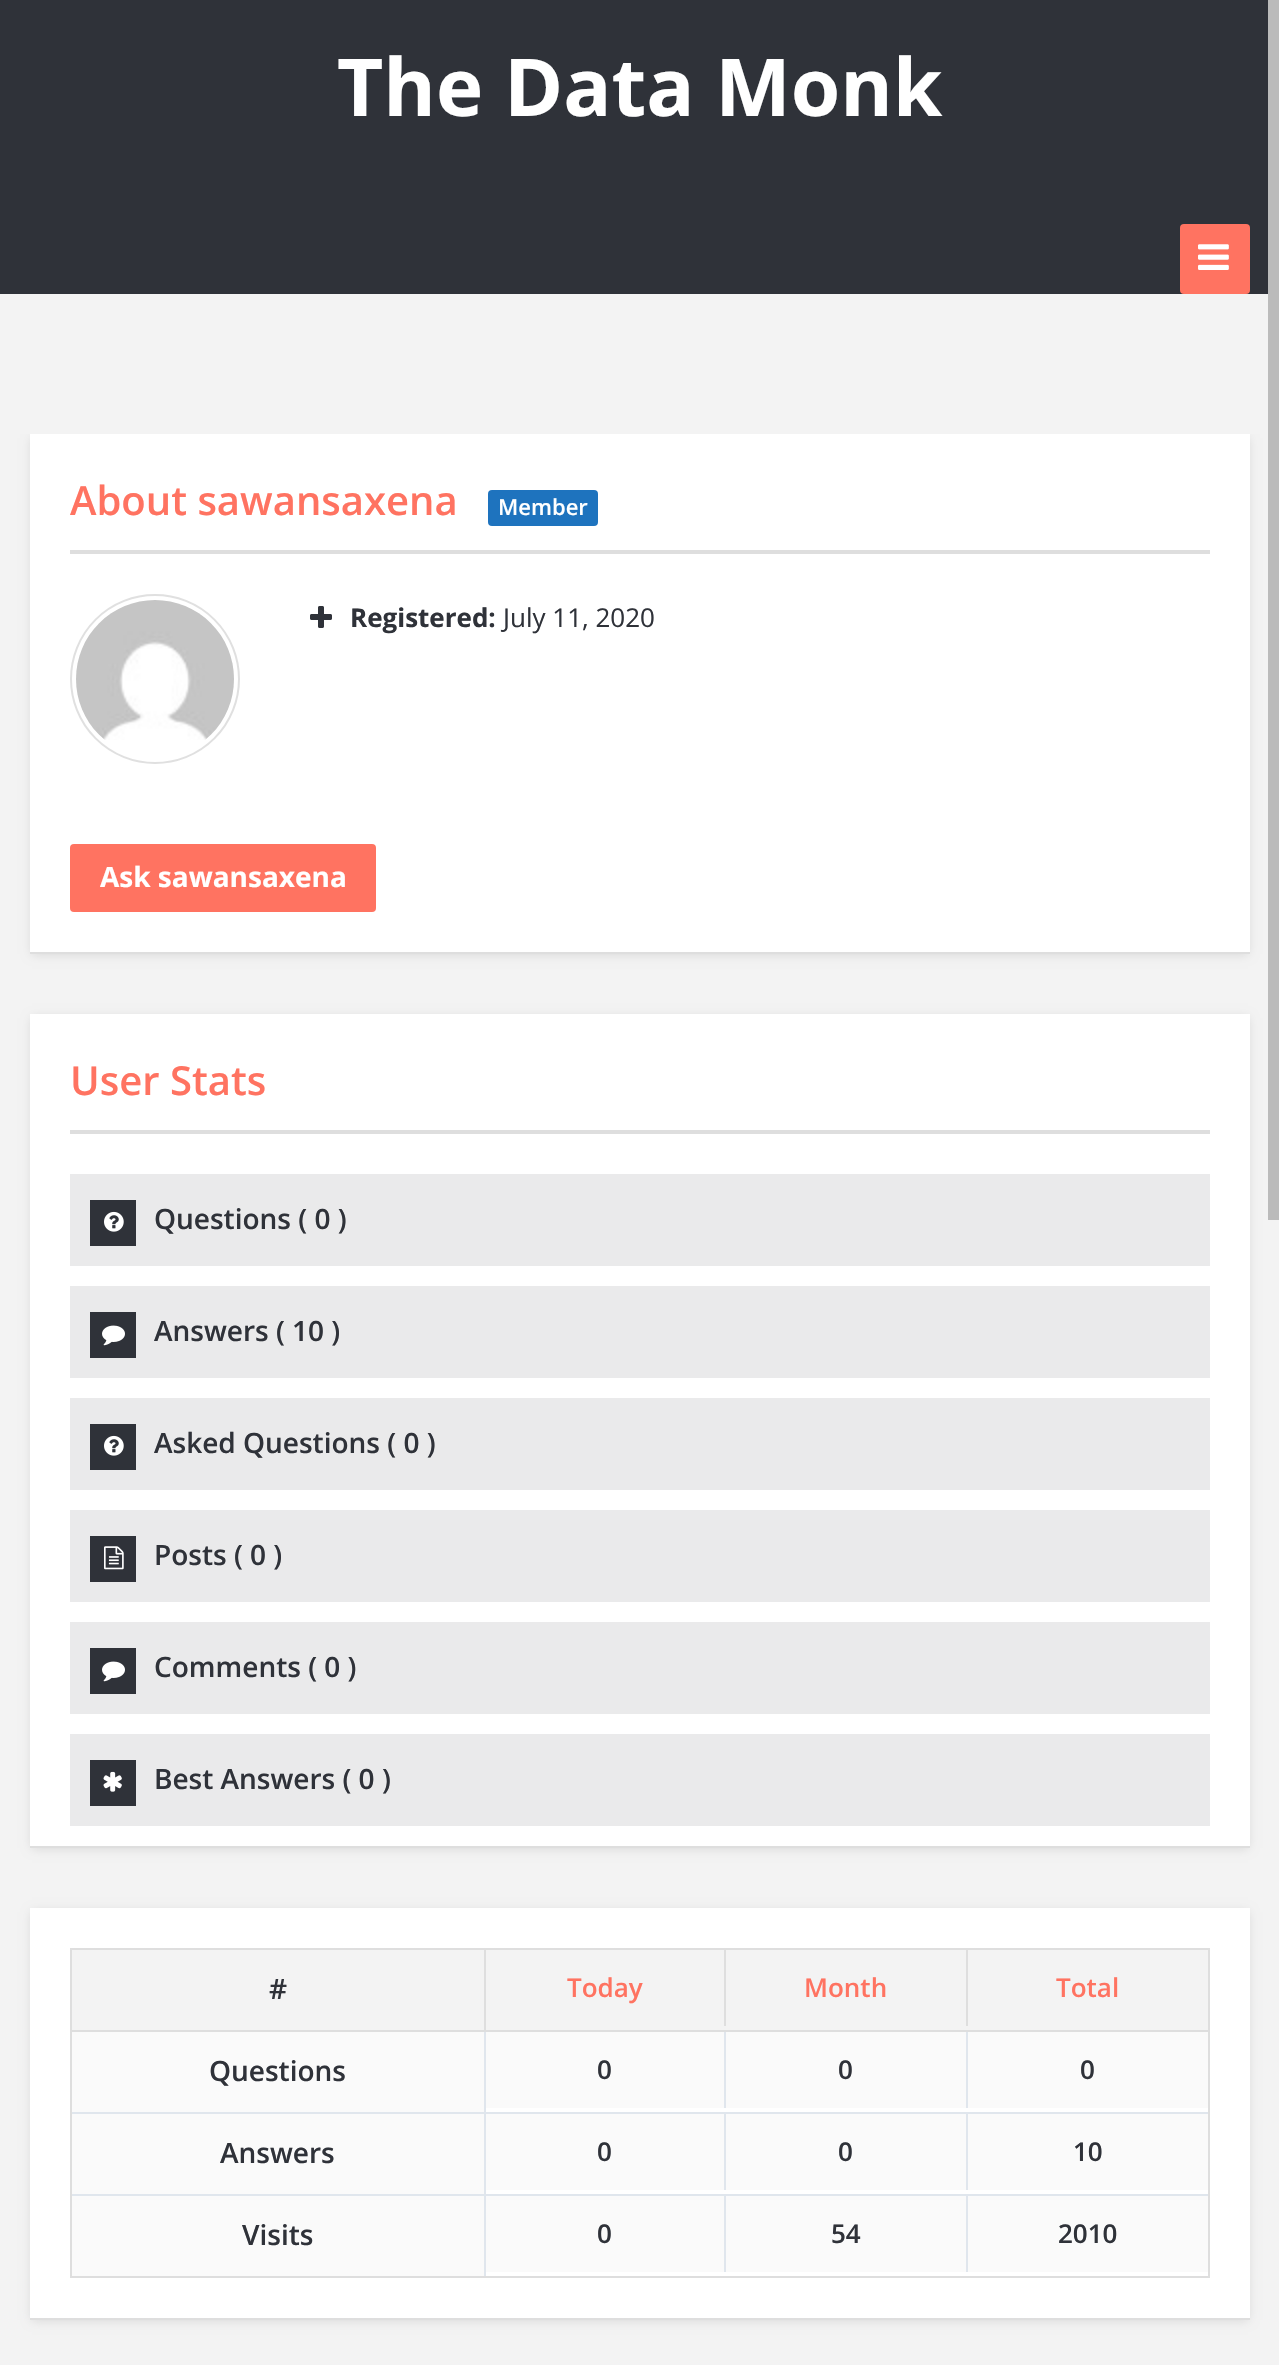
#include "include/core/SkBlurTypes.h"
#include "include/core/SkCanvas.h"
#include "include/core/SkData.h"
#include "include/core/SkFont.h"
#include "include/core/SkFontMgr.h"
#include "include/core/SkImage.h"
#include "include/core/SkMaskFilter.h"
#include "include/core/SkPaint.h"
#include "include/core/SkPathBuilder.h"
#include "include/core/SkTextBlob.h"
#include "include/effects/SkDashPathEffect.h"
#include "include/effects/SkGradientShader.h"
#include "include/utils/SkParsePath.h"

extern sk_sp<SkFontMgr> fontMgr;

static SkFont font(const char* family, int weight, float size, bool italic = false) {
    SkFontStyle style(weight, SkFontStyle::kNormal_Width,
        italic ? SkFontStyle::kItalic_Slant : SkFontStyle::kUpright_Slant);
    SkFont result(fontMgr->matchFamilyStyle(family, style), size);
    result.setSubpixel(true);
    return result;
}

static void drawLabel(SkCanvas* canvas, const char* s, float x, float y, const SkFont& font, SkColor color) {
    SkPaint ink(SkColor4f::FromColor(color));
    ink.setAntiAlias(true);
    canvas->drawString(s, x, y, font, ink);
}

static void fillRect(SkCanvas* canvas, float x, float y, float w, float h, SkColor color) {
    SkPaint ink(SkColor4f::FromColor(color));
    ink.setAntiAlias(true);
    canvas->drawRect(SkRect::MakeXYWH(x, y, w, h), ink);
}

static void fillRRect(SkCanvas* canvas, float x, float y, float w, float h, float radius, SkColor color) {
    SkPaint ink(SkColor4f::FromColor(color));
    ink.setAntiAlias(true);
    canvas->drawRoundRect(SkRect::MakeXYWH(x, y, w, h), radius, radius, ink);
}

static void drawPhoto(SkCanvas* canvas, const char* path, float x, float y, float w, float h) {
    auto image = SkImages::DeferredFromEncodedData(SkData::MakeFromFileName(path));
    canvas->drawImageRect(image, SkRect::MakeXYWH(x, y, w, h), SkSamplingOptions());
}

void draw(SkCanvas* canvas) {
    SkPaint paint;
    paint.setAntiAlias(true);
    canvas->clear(0xFFF3F3F3);
    fillRect(canvas, 0, 0, 1268, 294, 0xFF2F3239);
    SkFont font1 = font("Open Sans", 700, 80);
    drawLabel(canvas, "The Data Monk", 337, 116, font1, 0xFFFFFFFF);
    fillRRect(canvas, 1180, 224, 70, 70, 4, 0xFFFF7361);
    drawPhoto(canvas, "assets/img1.png", 1198, 244, 31, 26);
    canvas->save();
    canvas->clipRect(SkRect::MakeXYWH(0, 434, 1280, 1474));
    paint.setColor(0x21000000);
    paint.setMaskFilter(SkMaskFilter::MakeBlur(kNormal_SkBlurStyle, 5));
    canvas->drawRect(SkRect::MakeXYWH(32, 438, 1216, 516), paint);
    paint.setMaskFilter(nullptr);
    canvas->restore();
    fillRect(canvas, 30, 434, 1220, 518, 0xFFFFFFFF);
    fillRect(canvas, 30, 952, 1220, 2, 0xFFDEDEDE);
    fillRect(canvas, 70, 550, 1140, 4, 0xFFDEDEDE);
    SkFont font2 = font("Open Sans", 600, 40);
    drawLabel(canvas, "About sawansaxena", 70, 515, font2, 0xFFFF7361);
    fillRRect(canvas, 488, 490, 110, 36, 4, 0xFF1E73BE);
    SkFont font3 = font("Open Sans", 600, 22);
    drawLabel(canvas, "Member", 498, 515, font3, 0xFFFFFFFF);
    paint.setStroke(true);
    paint.setStrokeWidth(2);
    paint.setColor(0xFFE0E0E0);
    canvas->drawCircle(155, 679, 84, paint);
    drawPhoto(canvas, "assets/img2.png", 76, 600, 158, 140);
    drawPhoto(canvas, "assets/img3.png", 310, 606, 22, 22);
    SkFont font4 = font("Open Sans", 700, 26);
    drawLabel(canvas, "Registered:", 350, 627, font4, 0xFF2F3239);
    SkFont font5 = font("Open Sans", 400, 26);
    drawLabel(canvas, "July 11, 2020", 503, 627, font5, 0xFF2F3239);
    fillRRect(canvas, 70, 844, 306, 68, 4, 0xFFFF7361);
    SkFont font6 = font("Open Sans", 700, 28);
    drawLabel(canvas, "Ask sawansaxena", 100, 887, font6, 0xFFFFFFFF);
    paint.setStroke(false);
    paint.setColor(0x21000000);
    paint.setMaskFilter(SkMaskFilter::MakeBlur(kNormal_SkBlurStyle, 5));
    canvas->drawRect(SkRect::MakeXYWH(32, 1018, 1216, 830), paint);
    paint.setMaskFilter(nullptr);
    fillRect(canvas, 30, 1014, 1220, 832, 0xFFFFFFFF);
    fillRect(canvas, 30, 1846, 1220, 2, 0xFFDEDEDE);
    fillRect(canvas, 70, 1130, 1140, 4, 0xFFDEDEDE);
    drawLabel(canvas, "User Stats", 70, 1095, font2, 0xFFFF7361);
    fillRect(canvas, 70, 1174, 1140, 92, 0xFFEAEAEB);
    fillRect(canvas, 90, 1200, 46, 46, 0xFF2F3239);
    drawPhoto(canvas, "assets/img4.png", 104, 1211, 20, 21);
    SkFont font7 = font("Open Sans", 600, 28);
    drawLabel(canvas, "Questions ( 0 )", 154, 1229, font7, 0xFF2F3239);
    fillRect(canvas, 70, 1286, 1140, 92, 0xFFEAEAEB);
    fillRect(canvas, 90, 1312, 46, 46, 0xFF2F3239);
    drawPhoto(canvas, "assets/img5.png", 102, 1325, 23, 21);
    drawLabel(canvas, "Answers ( 10 )", 154, 1341, font7, 0xFF2F3239);
    fillRect(canvas, 70, 1398, 1140, 92, 0xFFEAEAEB);
    fillRect(canvas, 90, 1424, 46, 46, 0xFF2F3239);
    drawPhoto(canvas, "assets/img4.png", 104, 1435, 20, 21);
    drawLabel(canvas, "Asked Questions ( 0 )", 154, 1453, font7, 0xFF2F3239);
    fillRect(canvas, 70, 1510, 1140, 92, 0xFFEAEAEB);
    fillRect(canvas, 90, 1536, 46, 46, 0xFF2F3239);
    drawPhoto(canvas, "assets/img6.png", 104, 1546, 20, 24);
    drawLabel(canvas, "Posts ( 0 )", 154, 1565, font7, 0xFF2F3239);
    fillRect(canvas, 70, 1622, 1140, 92, 0xFFEAEAEB);
    fillRect(canvas, 90, 1648, 46, 46, 0xFF2F3239);
    drawPhoto(canvas, "assets/img5.png", 102, 1661, 23, 21);
    drawLabel(canvas, "Comments ( 0 )", 154, 1677, font7, 0xFF2F3239);
    fillRect(canvas, 70, 1734, 1140, 92, 0xFFEAEAEB);
    fillRect(canvas, 90, 1760, 46, 46, 0xFF2F3239);
    drawPhoto(canvas, "assets/img7.png", 103, 1771, 19, 21);
    drawLabel(canvas, "Best Answers ( 0 )", 154, 1789, font7, 0xFF2F3239);
    paint.setMaskFilter(SkMaskFilter::MakeBlur(kNormal_SkBlurStyle, 5));
    canvas->drawRect(SkRect::MakeXYWH(32, 1912, 1216, 408), paint);
    paint.setMaskFilter(nullptr);
    fillRect(canvas, 30, 1908, 1220, 410, 0xFFFFFFFF);
    fillRect(canvas, 30, 2318, 1220, 2, 0xFFDEDEDE);
    paint.setStroke(true);
    paint.setColor(0xFFDEDEDE);
    canvas->drawRect(SkRect::MakeXYWH(71, 1949, 1138, 328), paint);
    fillRect(canvas, 72, 1950, 1136, 80, 0xFFF3F3F3);
    fillRect(canvas, 72, 2030, 1136, 2, 0xFFDEDEDE);
    fillRect(canvas, 484, 1950, 2, 80, 0xFFDEDEDE);
    drawLabel(canvas, "#", 269, 1999, font7, 0xFF2F3239);
    fillRect(canvas, 724, 1950, 2, 76, 0xFFDEDEDE);
    SkFont font8 = font("Open Sans", 600, 26);
    drawLabel(canvas, "Today", 567, 1997, font8, 0xFFFF7361);
    fillRect(canvas, 966, 1950, 2, 76, 0xFFDEDEDE);
    drawLabel(canvas, "Month", 804, 1997, font8, 0xFFFF7361);
    drawLabel(canvas, "Total", 1056, 1997, font8, 0xFFFF7361);
    fillRect(canvas, 72, 2112, 1136, 2, 0xFFE0E6ED);
    fillRect(canvas, 72, 2032, 412, 80, 0xFFFAFAFA);
    fillRect(canvas, 484, 2032, 2, 80, 0xFFE0E6ED);
    drawLabel(canvas, "Questions", 209, 2081, font7, 0xFF2F3239);
    fillRect(canvas, 486, 2032, 238, 76, 0xFFFAFAFA);
    fillRect(canvas, 724, 2032, 2, 76, 0xFFE0E6ED);
    drawLabel(canvas, "0", 597, 2079, font8, 0xFF2F3239);
    fillRect(canvas, 726, 2032, 240, 76, 0xFFFAFAFA);
    fillRect(canvas, 966, 2032, 2, 76, 0xFFE0E6ED);
    drawLabel(canvas, "0", 838, 2079, font8, 0xFF2F3239);
    fillRect(canvas, 968, 2032, 240, 76, 0xFFFAFAFA);
    drawLabel(canvas, "0", 1080, 2079, font8, 0xFF2F3239);
    fillRect(canvas, 72, 2194, 1136, 2, 0xFFE0E6ED);
    fillRect(canvas, 72, 2114, 412, 80, 0xFFFAFAFA);
    fillRect(canvas, 484, 2114, 2, 80, 0xFFE0E6ED);
    drawLabel(canvas, "Answers", 220, 2163, font7, 0xFF2F3239);
    fillRect(canvas, 486, 2114, 238, 76, 0xFFFAFAFA);
    fillRect(canvas, 724, 2114, 2, 76, 0xFFE0E6ED);
    drawLabel(canvas, "0", 597, 2161, font8, 0xFF2F3239);
    fillRect(canvas, 726, 2114, 240, 76, 0xFFFAFAFA);
    fillRect(canvas, 966, 2114, 2, 76, 0xFFE0E6ED);
    drawLabel(canvas, "0", 838, 2161, font8, 0xFF2F3239);
    fillRect(canvas, 968, 2114, 240, 76, 0xFFFAFAFA);
    drawLabel(canvas, "10", 1073, 2161, font8, 0xFF2F3239);
    fillRect(canvas, 72, 2196, 412, 80, 0xFFFAFAFA);
    fillRect(canvas, 484, 2196, 2, 80, 0xFFE0E6ED);
    drawLabel(canvas, "Visits", 242, 2245, font7, 0xFF2F3239);
    fillRect(canvas, 486, 2196, 238, 76, 0xFFFAFAFA);
    fillRect(canvas, 724, 2196, 2, 76, 0xFFE0E6ED);
    drawLabel(canvas, "0", 597, 2243, font8, 0xFF2F3239);
    fillRect(canvas, 726, 2196, 240, 76, 0xFFFAFAFA);
    fillRect(canvas, 966, 2196, 2, 76, 0xFFE0E6ED);
    drawLabel(canvas, "54", 831, 2243, font8, 0xFF2F3239);
    fillRect(canvas, 968, 2196, 240, 76, 0xFFFAFAFA);
    drawLabel(canvas, "2010", 1058, 2243, font8, 0xFF2F3239);
    fillRect(canvas, 1268, 0, 11, 1220, 0xFFBBBBBB);
}
